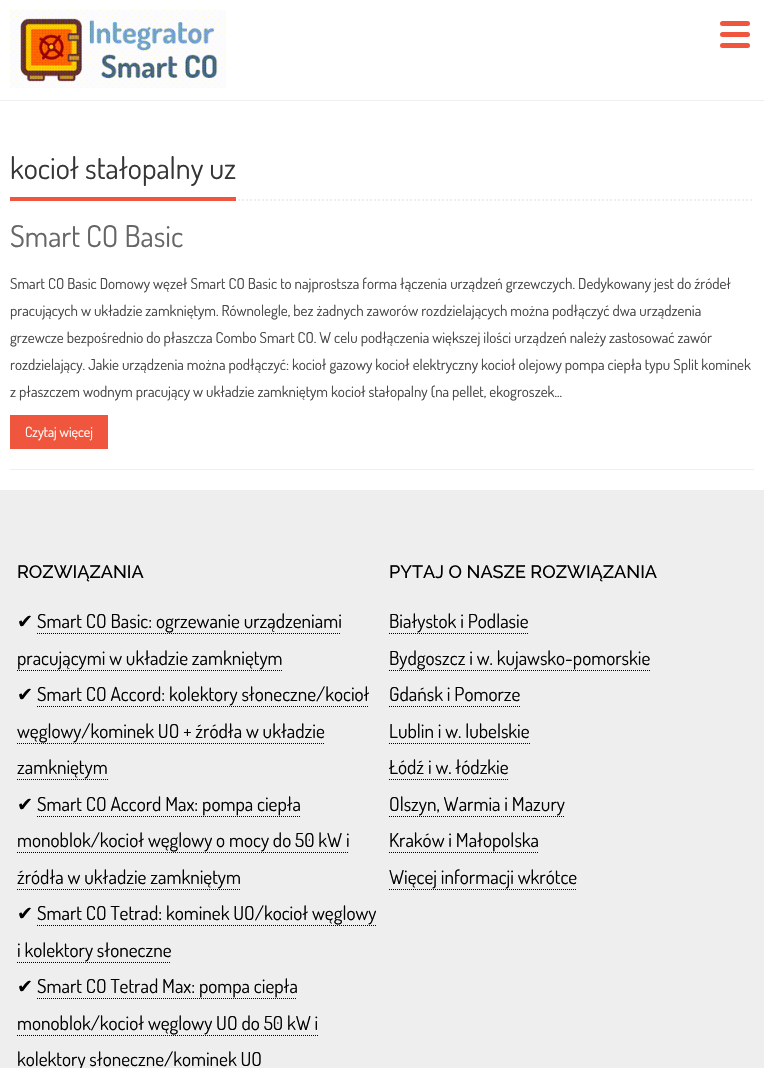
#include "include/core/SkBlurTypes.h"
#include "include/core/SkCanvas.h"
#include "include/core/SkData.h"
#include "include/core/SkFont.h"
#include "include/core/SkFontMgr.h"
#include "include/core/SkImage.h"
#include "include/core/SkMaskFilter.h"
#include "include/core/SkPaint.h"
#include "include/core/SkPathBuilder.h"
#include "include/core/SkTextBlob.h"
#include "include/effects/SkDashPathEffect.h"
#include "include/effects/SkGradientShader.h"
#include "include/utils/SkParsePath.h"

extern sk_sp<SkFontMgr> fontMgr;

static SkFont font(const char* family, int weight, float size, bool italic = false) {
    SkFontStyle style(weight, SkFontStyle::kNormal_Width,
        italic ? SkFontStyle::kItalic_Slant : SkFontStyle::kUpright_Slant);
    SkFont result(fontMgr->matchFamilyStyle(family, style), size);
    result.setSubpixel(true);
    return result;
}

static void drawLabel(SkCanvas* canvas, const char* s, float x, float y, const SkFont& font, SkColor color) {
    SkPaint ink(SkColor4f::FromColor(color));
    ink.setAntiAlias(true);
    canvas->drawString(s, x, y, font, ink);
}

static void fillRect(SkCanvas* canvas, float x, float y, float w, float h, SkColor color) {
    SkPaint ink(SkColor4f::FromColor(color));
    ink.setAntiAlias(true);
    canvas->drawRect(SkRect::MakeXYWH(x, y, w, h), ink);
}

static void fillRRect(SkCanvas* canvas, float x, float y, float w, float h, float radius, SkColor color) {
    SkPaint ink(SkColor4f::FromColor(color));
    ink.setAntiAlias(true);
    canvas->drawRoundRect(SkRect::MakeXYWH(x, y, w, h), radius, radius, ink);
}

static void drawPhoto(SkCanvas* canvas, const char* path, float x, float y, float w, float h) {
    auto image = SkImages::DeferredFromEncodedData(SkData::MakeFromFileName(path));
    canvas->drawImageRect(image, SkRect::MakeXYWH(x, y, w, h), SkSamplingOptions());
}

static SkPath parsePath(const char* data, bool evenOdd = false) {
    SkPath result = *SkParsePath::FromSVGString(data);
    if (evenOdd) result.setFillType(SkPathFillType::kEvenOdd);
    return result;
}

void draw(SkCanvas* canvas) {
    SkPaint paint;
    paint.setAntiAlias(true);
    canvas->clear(0xFFFFFFFF);
    fillRect(canvas, 0, 100, 764, 1, 0xFFEEEEEE);
    drawPhoto(canvas, "assets/img1.png", 10, 10, 216, 78);
    fillRRect(canvas, 720, 21, 30, 5, 2.5f, 0xFFF0563D);
    fillRRect(canvas, 720, 32, 30, 5, 2.5f, 0xFFF0563D);
    fillRRect(canvas, 720, 43, 30, 5, 2.5f, 0xFFF0563D);
    paint.setStroke(true);
    paint.setStrokeWidth(2);
    paint.setColor(0xFFEEEEEE);
    paint.setPathEffect(SkDashPathEffect::Make({{2, 2}}, 0));
    canvas->drawPath(parsePath("M10 200H754"), paint);
    paint.setPathEffect(nullptr);
    fillRect(canvas, 10, 197, 226, 4, 0xFFF0563D);
    SkFont font1 = font("Dosis", 400, 30);
    drawLabel(canvas, "kocioł stałopalny uz", 10, 179, font1, 0xFF353535);
    fillRect(canvas, 10, 469, 744, 1, 0xFFF0F0F0);
    drawLabel(canvas, "Smart CO Basic", 10, 247, font1, 0xFF666666);
    SkFont font2 = font("Dosis", 400, 15);
    drawLabel(canvas, "Smart CO Basic Domowy węzeł Smart CO Basic to najprostsza forma łączenia urządzeń grzewczych. Dedykowany jest do źródeł", 10, 289, font2, 0xFF444444);
    drawLabel(canvas, "pracujących w układzie zamkniętym. Równolegle, bez żadnych zaworów rozdzielających można podłączyć dwa urządzenia", 10, 316, font2, 0xFF444444);
    drawLabel(canvas, "grzewcze bezpośrednio do płaszcza Combo Smart CO. W celu podłączenia większej ilości urządzeń należy zastosować zawór", 10, 343, font2, 0xFF444444);
    drawLabel(canvas, "rozdzielający. Jakie urządzenia można podłączyć: kocioł gazowy kocioł elektryczny kocioł olejowy pompa ciepła typu Split kominek", 10, 370, font2, 0xFF444444);
    drawLabel(canvas, "z płaszczem wodnym pracujący w układzie zamkniętym kocioł stałopalny (na pellet, ekogroszek...", 10, 397, font2, 0xFF444444);
    fillRect(canvas, 10, 415, 98, 34, 0xFFF0563D);
    SkFont font3 = font("Dosis", 400, 14);
    drawLabel(canvas, "Czytaj więcej", 25, 437, font3, 0xFFFFFFFF);
    fillRect(canvas, 0, 490, 764, 578, 0xFFEEEEEE);
    SkFont font4 = font("Raleway", 500, 18);
    drawLabel(canvas, "ROZWIĄZANIA", 17, 578, font4, 0xFF000000);
    SkFont font5 = font("DejaVu Sans", 400, 19.25f);
    drawLabel(canvas, "✔", 17, 628, font5, 0xFF000000);
    SkFont font6 = font("Dosis", 400, 19.25f);
    drawLabel(canvas, "Smart CO Basic: ogrzewanie urządzeniami", 37, 628, font6, 0xFF000000);
    paint.setStrokeWidth(1);
    paint.setColor(0xFF000000);
    paint.setPathEffect(SkDashPathEffect::Make({{1, 1}}, 0));
    canvas->drawPath(parsePath("M37 633.5H341"), paint);
    paint.setPathEffect(nullptr);
    drawLabel(canvas, "pracującymi w układzie zamkniętym", 17, 665, font6, 0xFF000000);
    paint.setPathEffect(SkDashPathEffect::Make({{1, 1}}, 0));
    canvas->drawPath(parsePath("M17 670.5H282"), paint);
    paint.setPathEffect(nullptr);
    drawLabel(canvas, "✔", 17, 701, font5, 0xFF000000);
    drawLabel(canvas, "Smart CO Accord: kolektory słoneczne/kocioł", 37, 701, font6, 0xFF000000);
    paint.setPathEffect(SkDashPathEffect::Make({{1, 1}}, 0));
    canvas->drawPath(parsePath("M37 706.5H369"), paint);
    paint.setPathEffect(nullptr);
    drawLabel(canvas, "węglowy/kominek UO + źródła w układzie", 17, 738, font6, 0xFF000000);
    paint.setPathEffect(SkDashPathEffect::Make({{1, 1}}, 0));
    canvas->drawPath(parsePath("M17 743.5H324"), paint);
    paint.setPathEffect(nullptr);
    drawLabel(canvas, "zamkniętym", 17, 774, font6, 0xFF000000);
    paint.setPathEffect(SkDashPathEffect::Make({{1, 1}}, 0));
    canvas->drawPath(parsePath("M17 779.5H108"), paint);
    paint.setPathEffect(nullptr);
    drawLabel(canvas, "✔", 17, 811, font5, 0xFF000000);
    drawLabel(canvas, "Smart CO Accord Max: pompa ciepła", 37, 811, font6, 0xFF000000);
    paint.setPathEffect(SkDashPathEffect::Make({{1, 1}}, 0));
    canvas->drawPath(parsePath("M37 816.5H301"), paint);
    paint.setPathEffect(nullptr);
    drawLabel(canvas, "monoblok/kocioł węglowy o mocy do 50 kW i", 17, 847, font6, 0xFF000000);
    paint.setPathEffect(SkDashPathEffect::Make({{1, 1}}, 0));
    canvas->drawPath(parsePath("M17 852.5H349"), paint);
    paint.setPathEffect(nullptr);
    drawLabel(canvas, "źródła w układzie zamkniętym", 17, 884, font6, 0xFF000000);
    paint.setPathEffect(SkDashPathEffect::Make({{1, 1}}, 0));
    canvas->drawPath(parsePath("M17 889.5H241"), paint);
    paint.setPathEffect(nullptr);
    drawLabel(canvas, "✔", 17, 920, font5, 0xFF000000);
    drawLabel(canvas, "Smart CO Tetrad: kominek UO/kocioł węglowy", 37, 920, font6, 0xFF000000);
    paint.setPathEffect(SkDashPathEffect::Make({{1, 1}}, 0));
    canvas->drawPath(parsePath("M37 925.5H376"), paint);
    paint.setPathEffect(nullptr);
    drawLabel(canvas, "i kolektory słoneczne", 17, 957, font6, 0xFF000000);
    paint.setPathEffect(SkDashPathEffect::Make({{1, 1}}, 0));
    canvas->drawPath(parsePath("M17 962.5H171"), paint);
    paint.setPathEffect(nullptr);
    drawLabel(canvas, "✔", 17, 993, font5, 0xFF000000);
    drawLabel(canvas, "Smart CO Tetrad Max: pompa ciepła", 37, 993, font6, 0xFF000000);
    paint.setPathEffect(SkDashPathEffect::Make({{1, 1}}, 0));
    canvas->drawPath(parsePath("M37 998.5H297"), paint);
    paint.setPathEffect(nullptr);
    drawLabel(canvas, "monoblok/kocioł węglowy UO do 50 kW i", 17, 1030, font6, 0xFF000000);
    paint.setPathEffect(SkDashPathEffect::Make({{1, 1}}, 0));
    canvas->drawPath(parsePath("M17 1035.5H318"), paint);
    paint.setPathEffect(nullptr);
    drawLabel(canvas, "kolektory słoneczne/kominek UO", 17, 1066, font6, 0xFF000000);
    drawLabel(canvas, "PYTAJ O NASZE ROZWIĄZANIA", 389, 578, font4, 0xFF000000);
    drawLabel(canvas, "Białystok i Podlasie", 389, 628, font6, 0xFF000000);
    paint.setPathEffect(SkDashPathEffect::Make({{1, 1}}, 0));
    canvas->drawPath(parsePath("M389 633.5H528"), paint);
    paint.setPathEffect(nullptr);
    drawLabel(canvas, "Bydgoszcz i w. kujawsko-pomorskie", 389, 665, font6, 0xFF000000);
    paint.setPathEffect(SkDashPathEffect::Make({{1, 1}}, 0));
    canvas->drawPath(parsePath("M389 670.5H650"), paint);
    paint.setPathEffect(nullptr);
    drawLabel(canvas, "Gdańsk i Pomorze", 389, 701, font6, 0xFF000000);
    paint.setPathEffect(SkDashPathEffect::Make({{1, 1}}, 0));
    canvas->drawPath(parsePath("M389 706.5H520"), paint);
    paint.setPathEffect(nullptr);
    drawLabel(canvas, "Lublin i w. lubelskie", 389, 738, font6, 0xFF000000);
    paint.setPathEffect(SkDashPathEffect::Make({{1, 1}}, 0));
    canvas->drawPath(parsePath("M389 743.5H530"), paint);
    paint.setPathEffect(nullptr);
    drawLabel(canvas, "Łódź i w. łódzkie", 389, 774, font6, 0xFF000000);
    paint.setPathEffect(SkDashPathEffect::Make({{1, 1}}, 0));
    canvas->drawPath(parsePath("M389 779.5H509"), paint);
    paint.setPathEffect(nullptr);
    drawLabel(canvas, "Olszyn, Warmia i Mazury", 389, 811, font6, 0xFF000000);
    paint.setPathEffect(SkDashPathEffect::Make({{1, 1}}, 0));
    canvas->drawPath(parsePath("M389 816.5H565"), paint);
    paint.setPathEffect(nullptr);
    drawLabel(canvas, "Kraków i Małopolska", 389, 847, font6, 0xFF000000);
    paint.setPathEffect(SkDashPathEffect::Make({{1, 1}}, 0));
    canvas->drawPath(parsePath("M389 852.5H539"), paint);
    paint.setPathEffect(nullptr);
    drawLabel(canvas, "Więcej informacji wkrótce", 389, 884, font6, 0xFF000000);
    paint.setPathEffect(SkDashPathEffect::Make({{1, 1}}, 0));
    canvas->drawPath(parsePath("M389 889.5H577"), paint);
    paint.setPathEffect(nullptr);
}
